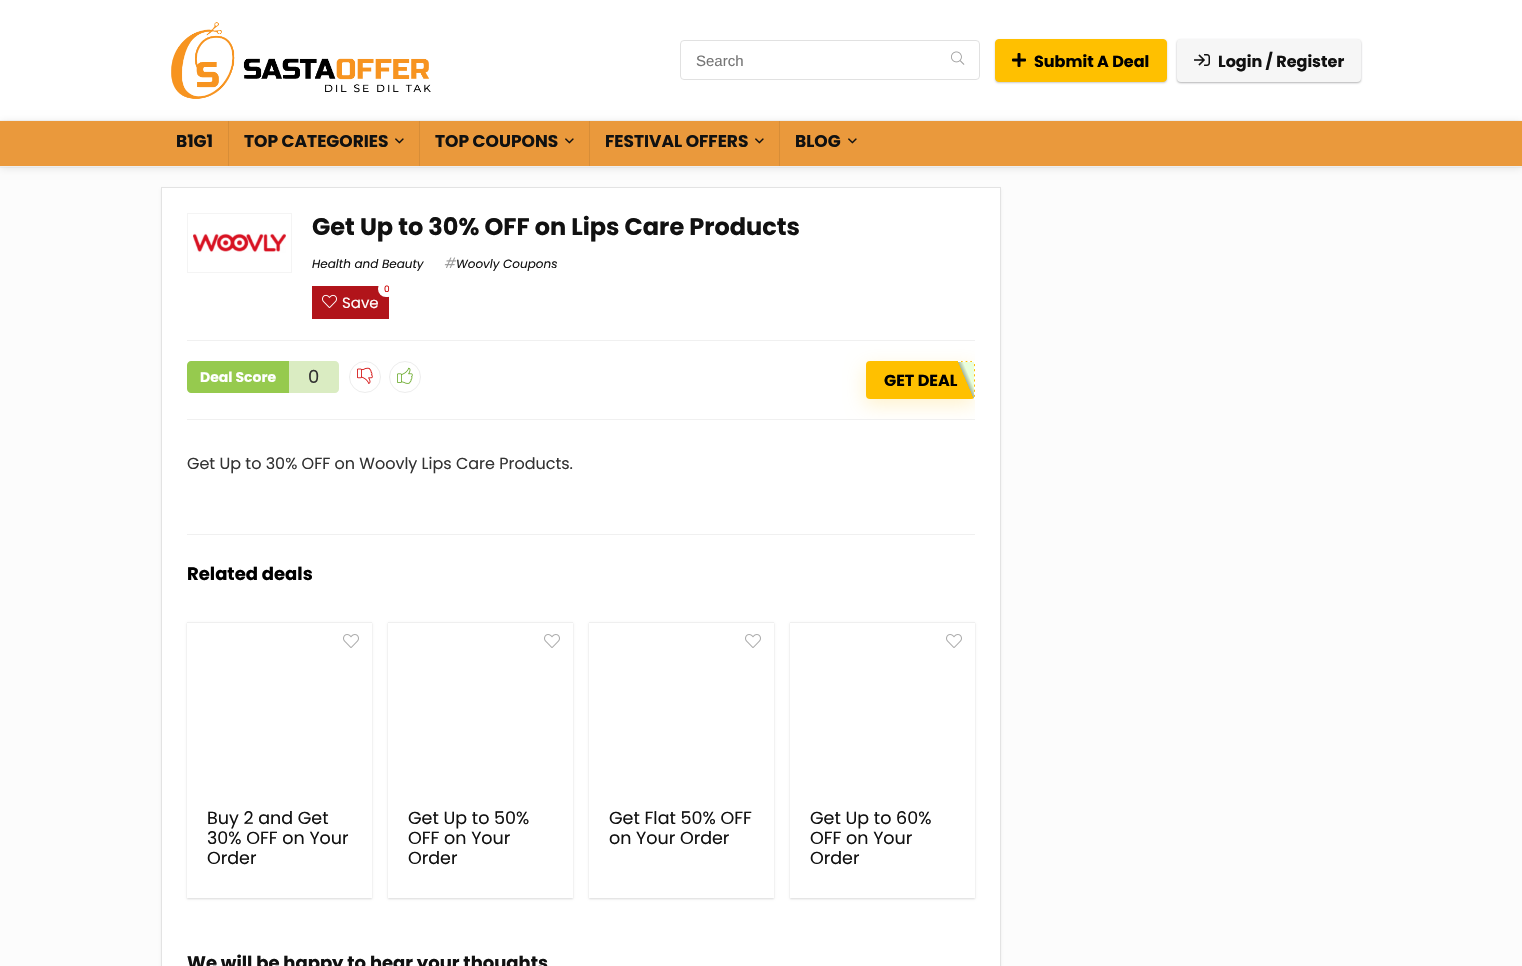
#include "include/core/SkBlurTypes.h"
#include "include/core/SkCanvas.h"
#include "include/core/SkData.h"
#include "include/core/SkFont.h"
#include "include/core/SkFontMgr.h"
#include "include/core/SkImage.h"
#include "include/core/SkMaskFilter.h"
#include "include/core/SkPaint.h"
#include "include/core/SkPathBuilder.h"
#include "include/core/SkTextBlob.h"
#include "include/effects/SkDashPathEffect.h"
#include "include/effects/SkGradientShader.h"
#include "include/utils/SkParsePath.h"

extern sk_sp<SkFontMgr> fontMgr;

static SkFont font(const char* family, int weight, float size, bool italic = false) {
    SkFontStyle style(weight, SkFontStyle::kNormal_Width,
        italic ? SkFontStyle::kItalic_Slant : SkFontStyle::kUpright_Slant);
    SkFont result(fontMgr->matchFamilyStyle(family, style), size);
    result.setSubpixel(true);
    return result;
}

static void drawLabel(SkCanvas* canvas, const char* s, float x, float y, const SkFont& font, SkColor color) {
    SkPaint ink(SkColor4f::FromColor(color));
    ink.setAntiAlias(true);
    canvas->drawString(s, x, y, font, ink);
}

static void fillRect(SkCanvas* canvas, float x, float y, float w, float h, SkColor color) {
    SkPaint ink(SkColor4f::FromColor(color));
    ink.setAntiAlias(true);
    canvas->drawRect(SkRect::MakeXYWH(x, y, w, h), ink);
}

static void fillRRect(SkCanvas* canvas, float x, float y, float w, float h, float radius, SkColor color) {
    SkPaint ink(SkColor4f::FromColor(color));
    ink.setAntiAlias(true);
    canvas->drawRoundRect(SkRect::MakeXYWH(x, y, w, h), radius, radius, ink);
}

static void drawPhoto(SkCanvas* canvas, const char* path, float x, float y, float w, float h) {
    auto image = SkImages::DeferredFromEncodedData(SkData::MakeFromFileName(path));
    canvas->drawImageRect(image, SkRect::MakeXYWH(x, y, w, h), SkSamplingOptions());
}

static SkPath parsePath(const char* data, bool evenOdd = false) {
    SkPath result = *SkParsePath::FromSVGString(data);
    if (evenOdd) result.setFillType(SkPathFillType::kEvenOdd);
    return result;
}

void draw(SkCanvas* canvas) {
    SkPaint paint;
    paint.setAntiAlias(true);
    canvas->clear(0xFFFCFCFC);
    fillRect(canvas, 0, 0, 1522, 121, 0xFFFFFFFF);
    drawPhoto(canvas, "assets/img1.png", 171, 22, 260, 77);
    paint.setStroke(true);
    paint.setStrokeWidth(1);
    paint.setColor(0xFFE1E1E1);
    canvas->drawRoundRect(SkRect::MakeXYWH(680.5f, 40.5f, 299, 39), 3.5f, 3.5f, paint);
    SkFont font1 = font("Liberation Sans", 400, 15);
    drawLabel(canvas, "Search", 696, 66, font1, 0xFF757575);
    drawPhoto(canvas, "assets/img2.png", 951, 51, 14, 14);
    paint.setStroke(false);
    paint.setColor(0x33000000);
    paint.setMaskFilter(SkMaskFilter::MakeBlur(kNormal_SkBlurStyle, 1));
    canvas->drawRoundRect(SkRect::MakeXYWH(995, 40, 172, 43), 4, 4, paint);
    paint.setMaskFilter(nullptr);
    paint.setColor(0xFFFFC000);
    canvas->drawRoundRect(SkRect::MakeXYWH(995.5f, 39.5f, 171, 42), 3.5f, 3.5f, paint);
    paint.setStroke(true);
    canvas->drawRoundRect(SkRect::MakeXYWH(995.5f, 39.5f, 171, 42), 3.5f, 3.5f, paint);
    drawPhoto(canvas, "assets/img3.png", 1012, 53, 14, 14);
    SkFont font2 = font("Poppins", 700, 16);
    drawLabel(canvas, "Submit A Deal", 1034, 67, font2, 0xFF000000);
    paint.setStroke(false);
    paint.setColor(0x14000000);
    paint.setMaskFilter(SkMaskFilter::MakeBlur(kNormal_SkBlurStyle, 1));
    canvas->drawRoundRect(SkRect::MakeXYWH(1177, 40, 184, 43), 4, 4, paint);
    paint.setMaskFilter(nullptr);
    paint.setColor(0x4D3C4043);
    paint.setMaskFilter(SkMaskFilter::MakeBlur(kNormal_SkBlurStyle, 1));
    canvas->drawRoundRect(SkRect::MakeXYWH(1177, 40, 184, 43), 4, 4, paint);
    paint.setMaskFilter(nullptr);
    fillRRect(canvas, 1177, 39, 184, 43, 4, 0xFFF6F6F6);
    drawPhoto(canvas, "assets/img4.png", 1194, 54, 16, 12);
    drawLabel(canvas, "Login / Register", 1218, 67, font2, 0xFF111111);
    paint.setStroke(true);
    paint.setColor(0x08000000);
    canvas->drawRect(SkRect::MakeXYWH(-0.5f, 120.5f, 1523, 47), paint);
    paint.setStroke(false);
    paint.setColor(0x1A000000);
    paint.setMaskFilter(SkMaskFilter::MakeBlur(kNormal_SkBlurStyle, 4));
    canvas->drawRect(SkRect::MakeXYWH(0, 122, 1522, 46), paint);
    paint.setMaskFilter(nullptr);
    fillRect(canvas, 0, 121, 1522, 45, 0xFFEA993C);
    fillRect(canvas, 0, 166, 1522, 1, 0xFFEEEEEE);
    fillRect(canvas, 228, 121, 1, 45, 0xFFD78D37);
    SkFont font3 = font("Poppins", 700, 17);
    drawLabel(canvas, "B1G1", 176, 147, font3, 0xFF111111);
    fillRect(canvas, 419, 121, 1, 45, 0xFFD78D37);
    drawLabel(canvas, "TOP CATEGORIES", 244, 147, font3, 0xFF111111);
    drawPhoto(canvas, "assets/img5.png", 395, 138, 9, 6);
    fillRect(canvas, 589, 121, 1, 45, 0xFFD78D37);
    drawLabel(canvas, "TOP COUPONS", 435, 147, font3, 0xFF111111);
    drawPhoto(canvas, "assets/img5.png", 565, 138, 9, 6);
    fillRect(canvas, 779, 121, 1, 45, 0xFFD78D37);
    drawLabel(canvas, "FESTIVAL OFFERS", 605, 147, font3, 0xFF111111);
    drawPhoto(canvas, "assets/img5.png", 755, 138, 9, 6);
    drawLabel(canvas, "BLOG", 795, 147, font3, 0xFF111111);
    drawPhoto(canvas, "assets/img5.png", 848, 138, 9, 6);
    paint.setColor(0xFFECECEC);
    paint.setMaskFilter(SkMaskFilter::MakeBlur(kNormal_SkBlurStyle, 1));
    canvas->drawRect(SkRect::MakeXYWH(161, 189, 840, 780), paint);
    paint.setMaskFilter(nullptr);
    paint.setColor(0xFFFFFFFF);
    canvas->drawRect(SkRect::MakeXYWH(161.5f, 187.5f, 839, 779), paint);
    paint.setStroke(true);
    paint.setColor(0xFFE3E3E3);
    canvas->drawRect(SkRect::MakeXYWH(161.5f, 187.5f, 839, 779), paint);
    paint.setColor(0xFFF4F4F4);
    canvas->drawRect(SkRect::MakeXYWH(187.5f, 213.5f, 104, 59), paint);
    drawPhoto(canvas, "assets/img6.png", 193, 233, 93, 20);
    SkFont font4 = font("Poppins", 700, 24);
    drawLabel(canvas, "Get Up to 30% OFF on Lips Care Products", 312, 235, font4, 0xFF111111);
    SkFont font5 = font("Poppins", 400, 12, true);
    drawLabel(canvas, "Health and Beauty", 312, 268, font5, 0xFF111111);
    drawPhoto(canvas, "assets/img7.png", 444, 257, 13, 11);
    drawLabel(canvas, "Woovly Coupons", 456, 268, font5, 0xFF111111);
    fillRect(canvas, 312, 286, 77, 33, 0xFFB1141A);
    fillRRect(canvas, 378, 281, 18, 16, 8, 0xFFFFFFFF);
    SkFont font6 = font("Poppins", 400, 9);
    drawLabel(canvas, "0", 384, 292, font6, 0xFFCC0000);
    drawPhoto(canvas, "assets/img8.png", 322, 294, 15, 14);
    SkFont font7 = font("Poppins", 400, 15);
    drawLabel(canvas, "Save", 342, 308, font7, 0xFFFFFFFF);
    fillRect(canvas, 187, 340, 788, 1, 0xFFF0F0F0);
    fillRect(canvas, 187, 419, 788, 1, 0xFFF0F0F0);
    paint.setStroke(false);
    paint.setColor(0xFF96CA4E);
    canvas->drawPath(parsePath("M191 361H289V393H191C189 393 187 391 187 389V365C187 363 189 361 191 361Z"), paint);
    SkFont font8 = font("Poppins", 700, 14);
    drawLabel(canvas, "Deal Score", 200, 382, font8, 0xFFFFFFFF);
    paint.setColor(0xFFDAECC2);
    canvas->drawPath(parsePath("M289 361H335C337 361 339 363 339 365V389C339 391 337 393 335 393H289Z"), paint);
    SkFont font9 = font("Poppins", 400, 18);
    drawLabel(canvas, "0", 308, 383, font9, 0xFF333333);
    paint.setStroke(true);
    paint.setColor(0xFFEDEDED);
    canvas->drawCircle(365, 377, 15.5f, paint);
    drawPhoto(canvas, "assets/img9.png", 357, 367, 16, 17);
    canvas->drawCircle(405, 377, 15.5f, paint);
    drawPhoto(canvas, "assets/img10.png", 397, 367, 16, 17);
    canvas->save();
    canvas->clipRect(SkRect::MakeXYWH(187, 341, 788, 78));
    paint.setStroke(false);
    paint.setColor(0x33FFC000);
    paint.setMaskFilter(SkMaskFilter::MakeBlur(kNormal_SkBlurStyle, 9.5f));
    canvas->drawRoundRect(SkRect::MakeXYWH(865, 367, 109, 38), 4, 4, paint);
    paint.setMaskFilter(nullptr);
    canvas->restore();
    fillRRect(canvas, 866, 361, 109, 38, 4, 0xFFFFC000);
    drawLabel(canvas, "GET DEAL", 884, 386, font2, 0xFF000000);
    {
        const SkColor colors[] = {0x00FFFFFF, 0x00A6B79D, 0xFFA6B79D, 0xFFE9FFDD};
        const float stops[] = {0, 0.5f, 0.51f, 0.66f};
        const SkPoint ends[] = {{952, 387}, {980, 375}};
        paint.setShader(SkGradientShader::MakeLinear(ends, colors, stops, 4, SkTileMode::kClamp));
        paint.setAlpha(255);
    }
    canvas->drawRect(SkRect::MakeXYWH(958, 362, 16, 36), paint);
    paint.setStroke(true);
    paint.setShader(nullptr);
    paint.setColor(0xFFFFFFFF);
    paint.setPathEffect(SkDashPathEffect::Make({{3, 1.67f}}, 0));
    canvas->drawPath(parsePath("M958 361.5H975"), paint);
    paint.setPathEffect(nullptr);
    paint.setPathEffect(SkDashPathEffect::Make({{3, 2.14f}}, 0));
    canvas->drawPath(parsePath("M974.5 361V400"), paint);
    paint.setPathEffect(nullptr);
    SkFont font10 = font("Poppins", 400, 16);
    drawLabel(canvas, "Get Up to 30% OFF on Woovly Lips Care Products.", 187, 469, font10, 0xFF333333);
    fillRect(canvas, 187, 534, 788, 1, 0xFFF0F0F0);
    SkFont font11 = font("Poppins", 700, 18);
    drawLabel(canvas, "Related deals", 187, 580, font11, 0xFF000000);
    canvas->save();
    canvas->clipPath(parsePath("M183 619H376V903H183ZM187 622H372V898H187Z", true), true);
    paint.setStroke(false);
    paint.setColor(0x26000000);
    paint.setMaskFilter(SkMaskFilter::MakeBlur(kNormal_SkBlurStyle, 1));
    canvas->drawRect(SkRect::MakeXYWH(187, 623, 185, 276), paint);
    paint.setMaskFilter(nullptr);
    canvas->restore();
    fillRect(canvas, 187, 622, 185, 1, 0xFFEFEFEF);
    drawPhoto(canvas, "assets/img11.png", 343, 634, 16, 14);
    SkFont font12 = font("Poppins", 400, 17.5f);
    drawLabel(canvas, "Buy 2 and Get", 207, 824, font12, 0xFF111111);
    drawLabel(canvas, "30% OFF on Your", 207, 844, font12, 0xFF111111);
    drawLabel(canvas, "Order", 207, 864, font12, 0xFF111111);
    canvas->save();
    canvas->clipPath(parsePath("M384 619H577V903H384ZM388 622H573V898H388Z", true), true);
    paint.setMaskFilter(SkMaskFilter::MakeBlur(kNormal_SkBlurStyle, 1));
    canvas->drawRect(SkRect::MakeXYWH(388, 623, 185, 276), paint);
    paint.setMaskFilter(nullptr);
    canvas->restore();
    fillRect(canvas, 388, 622, 185, 1, 0xFFEFEFEF);
    drawPhoto(canvas, "assets/img11.png", 544, 634, 16, 14);
    drawLabel(canvas, "Get Up to 50%", 408, 824, font12, 0xFF111111);
    drawLabel(canvas, "OFF on Your", 408, 844, font12, 0xFF111111);
    drawLabel(canvas, "Order", 408, 864, font12, 0xFF111111);
    canvas->save();
    canvas->clipPath(parsePath("M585 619H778V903H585ZM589 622H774V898H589Z", true), true);
    paint.setMaskFilter(SkMaskFilter::MakeBlur(kNormal_SkBlurStyle, 1));
    canvas->drawRect(SkRect::MakeXYWH(589, 623, 185, 276), paint);
    paint.setMaskFilter(nullptr);
    canvas->restore();
    fillRect(canvas, 589, 622, 185, 1, 0xFFEFEFEF);
    drawPhoto(canvas, "assets/img11.png", 745, 634, 16, 14);
    drawLabel(canvas, "Get Flat 50% OFF", 609, 824, font12, 0xFF111111);
    drawLabel(canvas, "on Your Order", 609, 844, font12, 0xFF111111);
    canvas->save();
    canvas->clipPath(parsePath("M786 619H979V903H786ZM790 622H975V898H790Z", true), true);
    paint.setMaskFilter(SkMaskFilter::MakeBlur(kNormal_SkBlurStyle, 1));
    canvas->drawRect(SkRect::MakeXYWH(790, 623, 185, 276), paint);
    paint.setMaskFilter(nullptr);
    canvas->restore();
    fillRect(canvas, 790, 622, 185, 1, 0xFFEFEFEF);
    drawPhoto(canvas, "assets/img11.png", 946, 634, 16, 14);
    drawLabel(canvas, "Get Up to 60%", 810, 824, font12, 0xFF111111);
    drawLabel(canvas, "OFF on Your", 810, 844, font12, 0xFF111111);
    drawLabel(canvas, "Order", 810, 864, font12, 0xFF111111);
    drawLabel(canvas, "We will be happy to hear your thoughts", 187, 969, font11, 0xFF111111);
}
